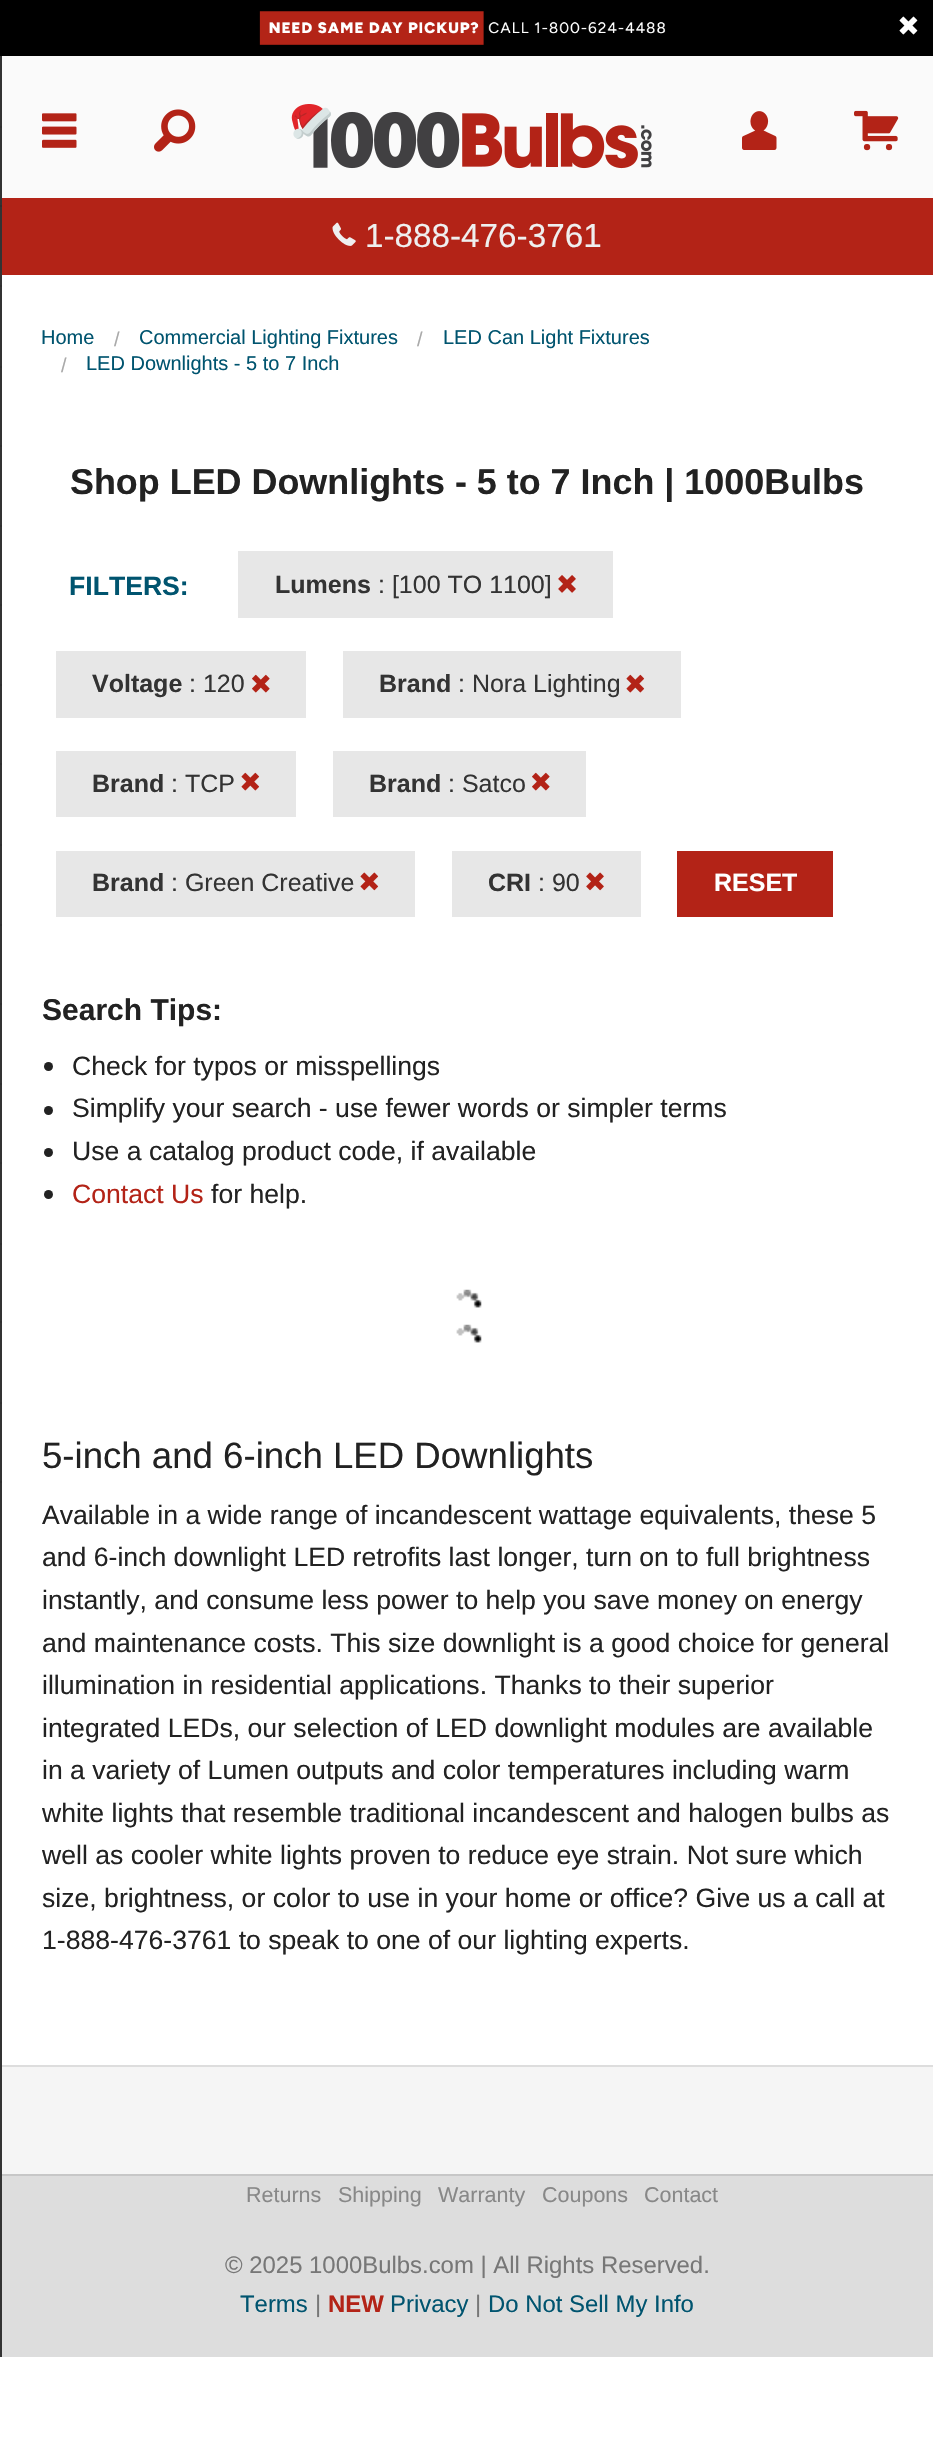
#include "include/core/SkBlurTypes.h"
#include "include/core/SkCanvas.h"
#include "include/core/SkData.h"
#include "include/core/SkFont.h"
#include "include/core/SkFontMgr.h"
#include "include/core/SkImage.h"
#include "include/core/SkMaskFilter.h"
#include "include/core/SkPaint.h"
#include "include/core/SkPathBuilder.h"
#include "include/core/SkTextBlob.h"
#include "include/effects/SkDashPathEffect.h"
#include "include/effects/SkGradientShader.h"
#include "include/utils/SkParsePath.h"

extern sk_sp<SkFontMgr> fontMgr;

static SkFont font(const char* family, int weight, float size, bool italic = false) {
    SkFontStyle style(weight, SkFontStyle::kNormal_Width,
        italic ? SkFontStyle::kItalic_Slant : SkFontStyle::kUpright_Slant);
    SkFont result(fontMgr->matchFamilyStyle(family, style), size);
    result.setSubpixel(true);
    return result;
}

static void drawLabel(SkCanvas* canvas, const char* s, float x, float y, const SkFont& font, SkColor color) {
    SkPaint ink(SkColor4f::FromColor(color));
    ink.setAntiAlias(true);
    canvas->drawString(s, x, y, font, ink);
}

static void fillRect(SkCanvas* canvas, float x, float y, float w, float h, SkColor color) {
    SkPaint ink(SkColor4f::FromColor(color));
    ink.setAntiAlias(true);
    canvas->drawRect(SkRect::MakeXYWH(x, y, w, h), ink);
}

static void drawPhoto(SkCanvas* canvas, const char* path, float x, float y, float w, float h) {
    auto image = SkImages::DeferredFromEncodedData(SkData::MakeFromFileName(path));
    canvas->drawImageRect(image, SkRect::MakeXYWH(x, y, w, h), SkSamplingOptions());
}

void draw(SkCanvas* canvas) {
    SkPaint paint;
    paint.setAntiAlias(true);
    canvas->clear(0xFFFFFFFF);
    fillRect(canvas, 0, 0, 933, 56, 0xFF000000);
    drawPhoto(canvas, "assets/img1.png", 259, 11, 407, 34);
    drawPhoto(canvas, "assets/img2.png", 899, 16, 19, 19);
    fillRect(canvas, 0, 2065, 933, 2, 0xFFDDDDDD);
    fillRect(canvas, 0, 2174, 933, 2, 0xFFC7C7C7);
    fillRect(canvas, 0, 56, 2, 2301, 0xFF333333);
    fillRect(canvas, 0, 126, 2, 2, 0xFF2E2E2E);
    fillRect(canvas, 0, 205, 2, 2, 0xFF2E2E2E);
    fillRect(canvas, 0, 285, 2, 2, 0xFF2E2E2E);
    fillRect(canvas, 0, 366, 2, 2, 0xFF2E2E2E);
    fillRect(canvas, 0, 445, 2, 2, 0xFF2E2E2E);
    fillRect(canvas, 0, 525, 2, 2, 0xFF2E2E2E);
    fillRect(canvas, 0, 604, 2, 2, 0xFF2E2E2E);
    fillRect(canvas, 0, 684, 2, 2, 0xFF2E2E2E);
    fillRect(canvas, 0, 763, 2, 2, 0xFF2E2E2E);
    fillRect(canvas, 0, 844, 2, 2, 0xFF2E2E2E);
    fillRect(canvas, 0, 924, 2, 2, 0xFF2E2E2E);
    fillRect(canvas, 0, 1003, 2, 2, 0xFF2E2E2E);
    fillRect(canvas, 0, 1083, 2, 2, 0xFF2E2E2E);
    fillRect(canvas, 0, 1162, 2, 2, 0xFF2E2E2E);
    fillRect(canvas, 0, 1243, 2, 2, 0xFF2E2E2E);
    fillRect(canvas, 0, 1321, 2, 2, 0xFF2E2E2E);
    fillRect(canvas, 0, 1402, 2, 2, 0xFF2E2E2E);
    fillRect(canvas, 0, 1481, 2, 2, 0xFF2E2E2E);
    fillRect(canvas, 2, 56, 931, 142, 0xFFFAFAFA);
    drawPhoto(canvas, "assets/img3.png", 42, 113, 35, 35);
    drawPhoto(canvas, "assets/img4.png", 154, 109, 42, 43);
    drawPhoto(canvas, "assets/img5.png", 291, 104, 361, 65);
    drawPhoto(canvas, "assets/img6.png", 742, 111, 35, 39);
    drawPhoto(canvas, "assets/img7.png", 854, 110, 45, 41);
    fillRect(canvas, 2, 198, 931, 77, 0xFFB32317);
    drawPhoto(canvas, "assets/img8.png", 332, 222, 24, 24);
    SkFont font1 = font("Liberation Sans", 400, 33.25f);
    drawLabel(canvas, "1-888-476-3761", 365, 247, font1, 0xFFEFEFEF);
    SkFont font2 = font("Liberation Sans", 400, 20);
    drawLabel(canvas, "Home", 41, 344, font2, 0xFF00546F);
    drawLabel(canvas, "/", 114, 346, font2, 0xFFAAAAAA);
    drawLabel(canvas, "Commercial Lighting Fixtures", 139, 344, font2, 0xFF00546F);
    drawLabel(canvas, "/", 417, 346, font2, 0xFFAAAAAA);
    drawLabel(canvas, "LED Can Light Fixtures", 443, 344, font2, 0xFF00546F);
    drawLabel(canvas, "/", 61, 372, font2, 0xFFAAAAAA);
    drawLabel(canvas, "LED Downlights - 5 to 7 Inch", 86, 370, font2, 0xFF00546F);
    SkFont font3 = font("Liberation Sans", 700, 35.9f);
    drawLabel(canvas, "Shop LED Downlights - 5 to 7 Inch | 1000Bulbs", 70, 494, font3, 0xFF222222);
    SkFont font4 = font("Liberation Sans", 700, 26.6f);
    drawLabel(canvas, "FILTERS:", 69, 595, font4, 0xFF00546F);
    fillRect(canvas, 238, 551, 375, 67, 0xFFE7E7E7);
    SkFont font5 = font("Liberation Sans", 700, 25);
    drawLabel(canvas, "Lumens", 275, 593, font5, 0xFF333333);
    SkFont font6 = font("Liberation Sans", 400, 25);
    drawLabel(canvas, ": [100 TO 1100]", 378, 593, font6, 0xFF333333);
    drawPhoto(canvas, "assets/img9.png", 558, 575, 18, 18);
    fillRect(canvas, 56, 651, 250, 67, 0xFFE7E7E7);
    drawLabel(canvas, "Voltage", 92, 692, font5, 0xFF333333);
    drawLabel(canvas, ": 120", 189, 692, font6, 0xFF333333);
    drawPhoto(canvas, "assets/img10.png", 252, 674, 18, 19);
    fillRect(canvas, 343, 651, 338, 67, 0xFFE7E7E7);
    drawLabel(canvas, "Brand", 379, 692, font5, 0xFF333333);
    drawLabel(canvas, ": Nora Lighting", 458, 692, font6, 0xFF333333);
    drawPhoto(canvas, "assets/img11.png", 626, 674, 19, 19);
    fillRect(canvas, 56, 751, 240, 66, 0xFFE7E7E7);
    drawLabel(canvas, "Brand", 92, 792, font5, 0xFF333333);
    drawLabel(canvas, ": TCP", 171, 792, font6, 0xFF333333);
    drawPhoto(canvas, "assets/img11.png", 241, 772, 19, 19);
    fillRect(canvas, 333, 751, 253, 66, 0xFFE7E7E7);
    drawLabel(canvas, "Brand", 369, 792, font5, 0xFF333333);
    drawLabel(canvas, ": Satco", 448, 792, font6, 0xFF333333);
    drawPhoto(canvas, "assets/img10.png", 532, 772, 18, 19);
    fillRect(canvas, 56, 851, 359, 66, 0xFFE7E7E7);
    drawLabel(canvas, "Brand", 92, 891, font5, 0xFF333333);
    drawLabel(canvas, ": Green Creative", 171, 891, font6, 0xFF333333);
    drawPhoto(canvas, "assets/img12.png", 360, 872, 19, 19);
    fillRect(canvas, 452, 851, 189, 66, 0xFFE7E7E7);
    drawLabel(canvas, "CRI", 488, 891, font5, 0xFF333333);
    drawLabel(canvas, ": 90", 538, 891, font6, 0xFF333333);
    drawPhoto(canvas, "assets/img13.png", 586, 872, 18, 19);
    fillRect(canvas, 677, 851, 156, 66, 0xFFB32317);
    drawLabel(canvas, "RESET", 714, 891, font5, 0xFFFFFFFF);
    SkFont font7 = font("Liberation Sans", 700, 30);
    drawLabel(canvas, "Search Tips:", 42, 1020, font7, 0xFF222222);
    paint.setColor(0xFF222222);
    canvas->drawCircle(48.5f, 1066.5f, 4.5f, paint);
    SkFont font8 = font("Liberation Sans", 400, 26.6f);
    drawLabel(canvas, "Check for typos or misspellings", 72, 1075, font8, 0xFF222222);
    canvas->drawCircle(48.5f, 1110.5f, 4.5f, paint);
    drawLabel(canvas, "Simplify your search - use fewer words or simpler terms", 72, 1117, font8, 0xFF222222);
    canvas->drawCircle(48.5f, 1152.5f, 4.5f, paint);
    drawLabel(canvas, "Use a catalog product code, if available", 72, 1160, font8, 0xFF222222);
    canvas->drawCircle(48.5f, 1194.5f, 4.5f, paint);
    drawLabel(canvas, "Contact Us", 72, 1203, font8, 0xFFB32317);
    drawLabel(canvas, "for help.", 211, 1203, font8, 0xFF222222);
    drawPhoto(canvas, "assets/img14.png", 456, 1289, 26, 19);
    drawPhoto(canvas, "assets/img14.png", 456, 1324, 26, 19);
    SkFont font9 = font("Liberation Sans", 400, 36.6f);
    drawLabel(canvas, "5-inch and 6-inch LED Downlights", 42, 1468, font9, 0xFF222222);
    drawLabel(canvas, "Available in a wide range of incandescent wattage equivalents, these 5", 42, 1524, font8, 0xFF222222);
    drawLabel(canvas, "and 6-inch downlight LED retrofits last longer, turn on to full brightness", 42, 1566, font8, 0xFF222222);
    drawLabel(canvas, "instantly, and consume less power to help you save money on energy", 42, 1609, font8, 0xFF222222);
    drawLabel(canvas, "and maintenance costs. This size downlight is a good choice for general", 42, 1652, font8, 0xFF222222);
    drawLabel(canvas, "illumination in residential applications. Thanks to their superior", 42, 1694, font8, 0xFF222222);
    drawLabel(canvas, "integrated LEDs, our selection of LED downlight modules are available", 42, 1737, font8, 0xFF222222);
    drawLabel(canvas, "in a variety of Lumen outputs and color temperatures including warm", 42, 1779, font8, 0xFF222222);
    drawLabel(canvas, "white lights that resemble traditional incandescent and halogen bulbs as", 42, 1822, font8, 0xFF222222);
    drawLabel(canvas, "well as cooler white lights proven to reduce eye strain. Not sure which", 42, 1864, font8, 0xFF222222);
    drawLabel(canvas, "size, brightness, or color to use in your home or office? Give us a call at", 42, 1907, font8, 0xFF222222);
    drawLabel(canvas, "1-888-476-3761 to speak to one of our lighting experts.", 42, 1949, font8, 0xFF222222);
    fillRect(canvas, 2, 2176, 931, 181, 0xFFDDDDDD);
    fillRect(canvas, 2, 2067, 931, 107, 0xFFF5F5F5);
    SkFont font10 = font("Liberation Sans", 400, 21.5f);
    drawLabel(canvas, "Returns", 246, 2202, font10, 0xFF888888);
    drawLabel(canvas, "Shipping", 338, 2202, font10, 0xFF888888);
    drawLabel(canvas, "Warranty", 438, 2202, font10, 0xFF888888);
    drawLabel(canvas, "Coupons", 542, 2202, font10, 0xFF888888);
    drawLabel(canvas, "Contact", 644, 2202, font10, 0xFF888888);
    SkFont font11 = font("Liberation Sans", 400, 23.9f);
    drawLabel(canvas, "© 2025 1000Bulbs.com | All Rights Reserved.", 225, 2273, font11, 0xFF777777);
    drawLabel(canvas, "Terms", 240, 2312, font11, 0xFF00546F);
    drawLabel(canvas, "|", 315, 2312, font11, 0xFF777777);
    SkFont font12 = font("Liberation Sans", 700, 23.9f);
    drawLabel(canvas, "NEW", 328, 2312, font12, 0xFFB32317);
    drawLabel(canvas, "Privacy", 390, 2312, font11, 0xFF00546F);
    drawLabel(canvas, "|", 475, 2312, font11, 0xFF777777);
    drawLabel(canvas, "Do Not Sell My Info", 488, 2312, font11, 0xFF00546F);
}
